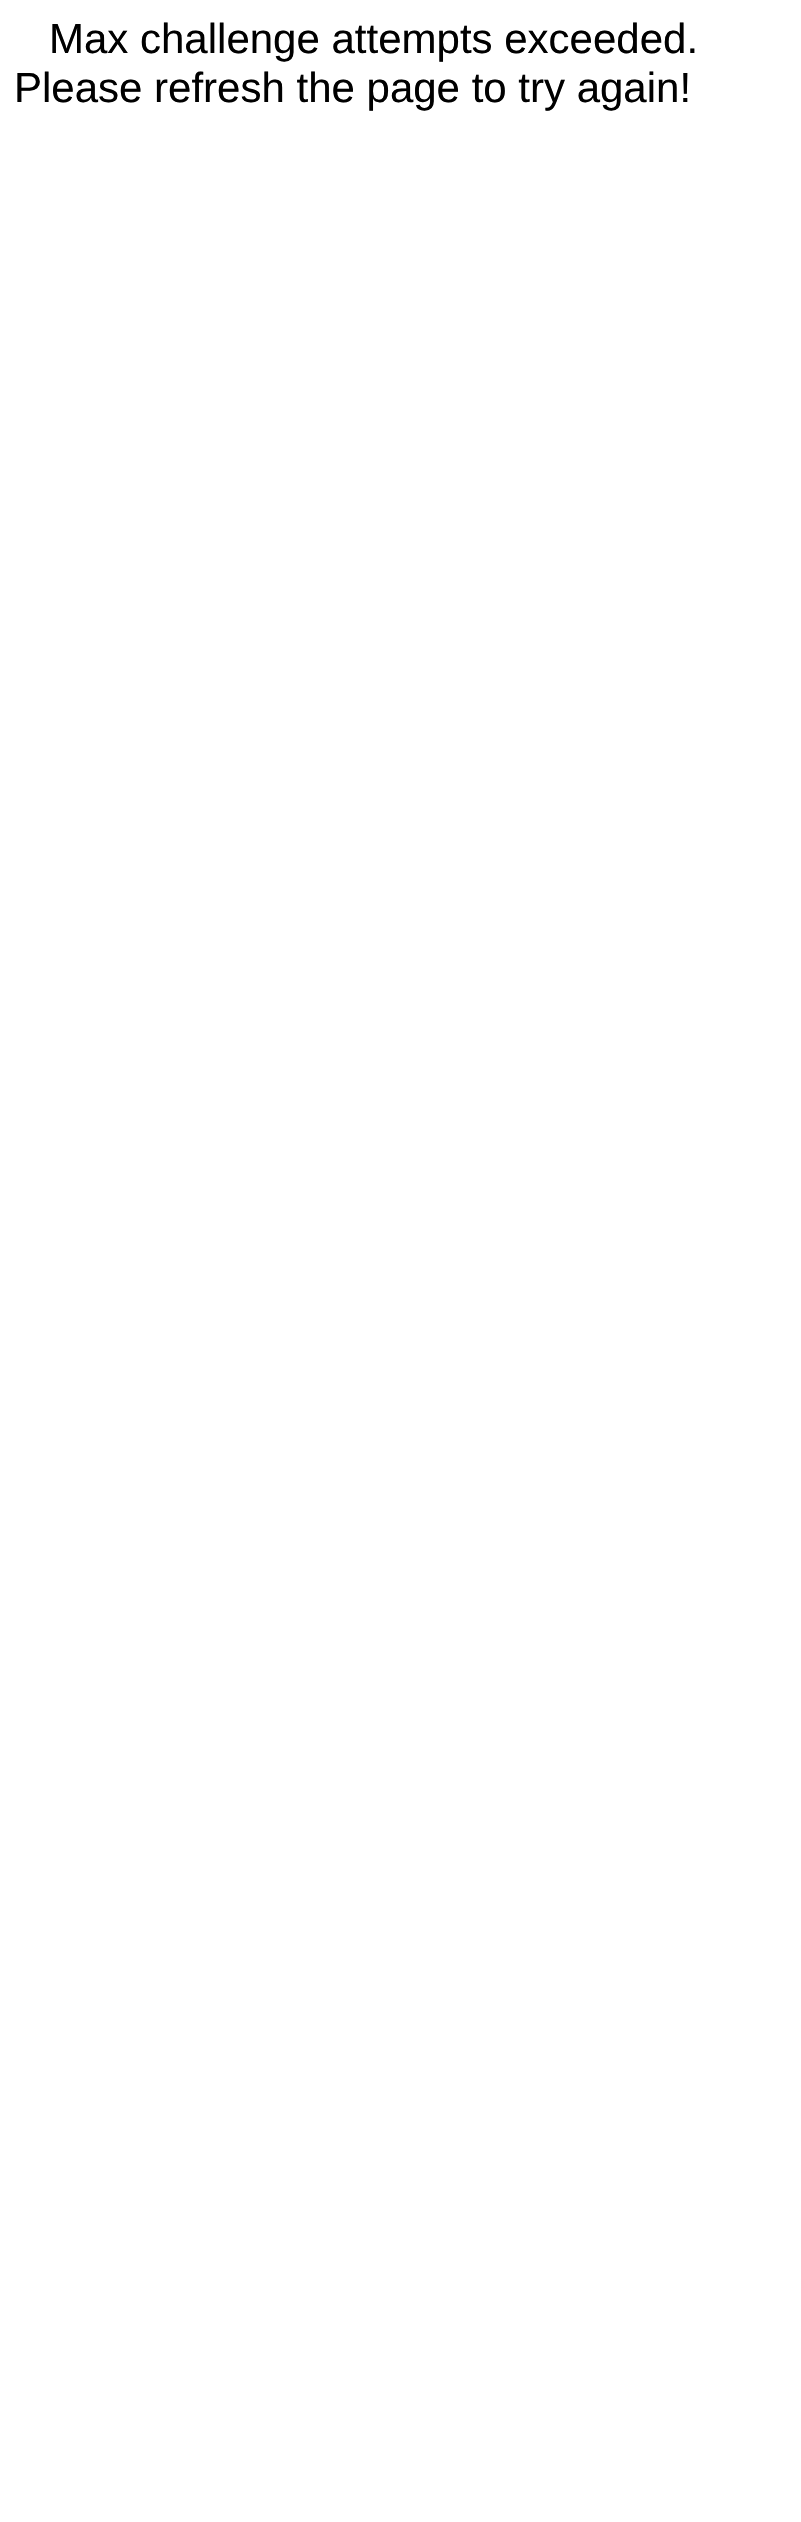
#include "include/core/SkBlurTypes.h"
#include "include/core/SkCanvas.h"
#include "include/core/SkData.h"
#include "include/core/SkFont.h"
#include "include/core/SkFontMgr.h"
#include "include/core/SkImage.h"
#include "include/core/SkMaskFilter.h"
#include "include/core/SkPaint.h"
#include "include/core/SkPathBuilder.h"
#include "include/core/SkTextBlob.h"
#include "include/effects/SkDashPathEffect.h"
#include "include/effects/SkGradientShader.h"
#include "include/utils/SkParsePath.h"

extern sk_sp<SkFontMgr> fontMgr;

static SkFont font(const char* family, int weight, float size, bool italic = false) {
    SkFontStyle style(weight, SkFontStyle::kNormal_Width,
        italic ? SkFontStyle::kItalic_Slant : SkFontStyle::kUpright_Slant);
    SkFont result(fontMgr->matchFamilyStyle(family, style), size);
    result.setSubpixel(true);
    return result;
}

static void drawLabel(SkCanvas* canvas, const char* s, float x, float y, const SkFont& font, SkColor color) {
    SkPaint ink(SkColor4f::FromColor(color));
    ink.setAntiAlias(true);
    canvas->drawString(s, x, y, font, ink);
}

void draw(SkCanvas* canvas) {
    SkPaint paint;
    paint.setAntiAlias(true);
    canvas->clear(0xFFFFFFFF);
    SkFont font1 = font("Liberation Sans", 400, 42);
    drawLabel(canvas, "Max challenge attempts exceeded.", 49, 53, font1, 0xFF000000);
    drawLabel(canvas, "Please refresh the page to try again!", 14, 102, font1, 0xFF000000);
}
